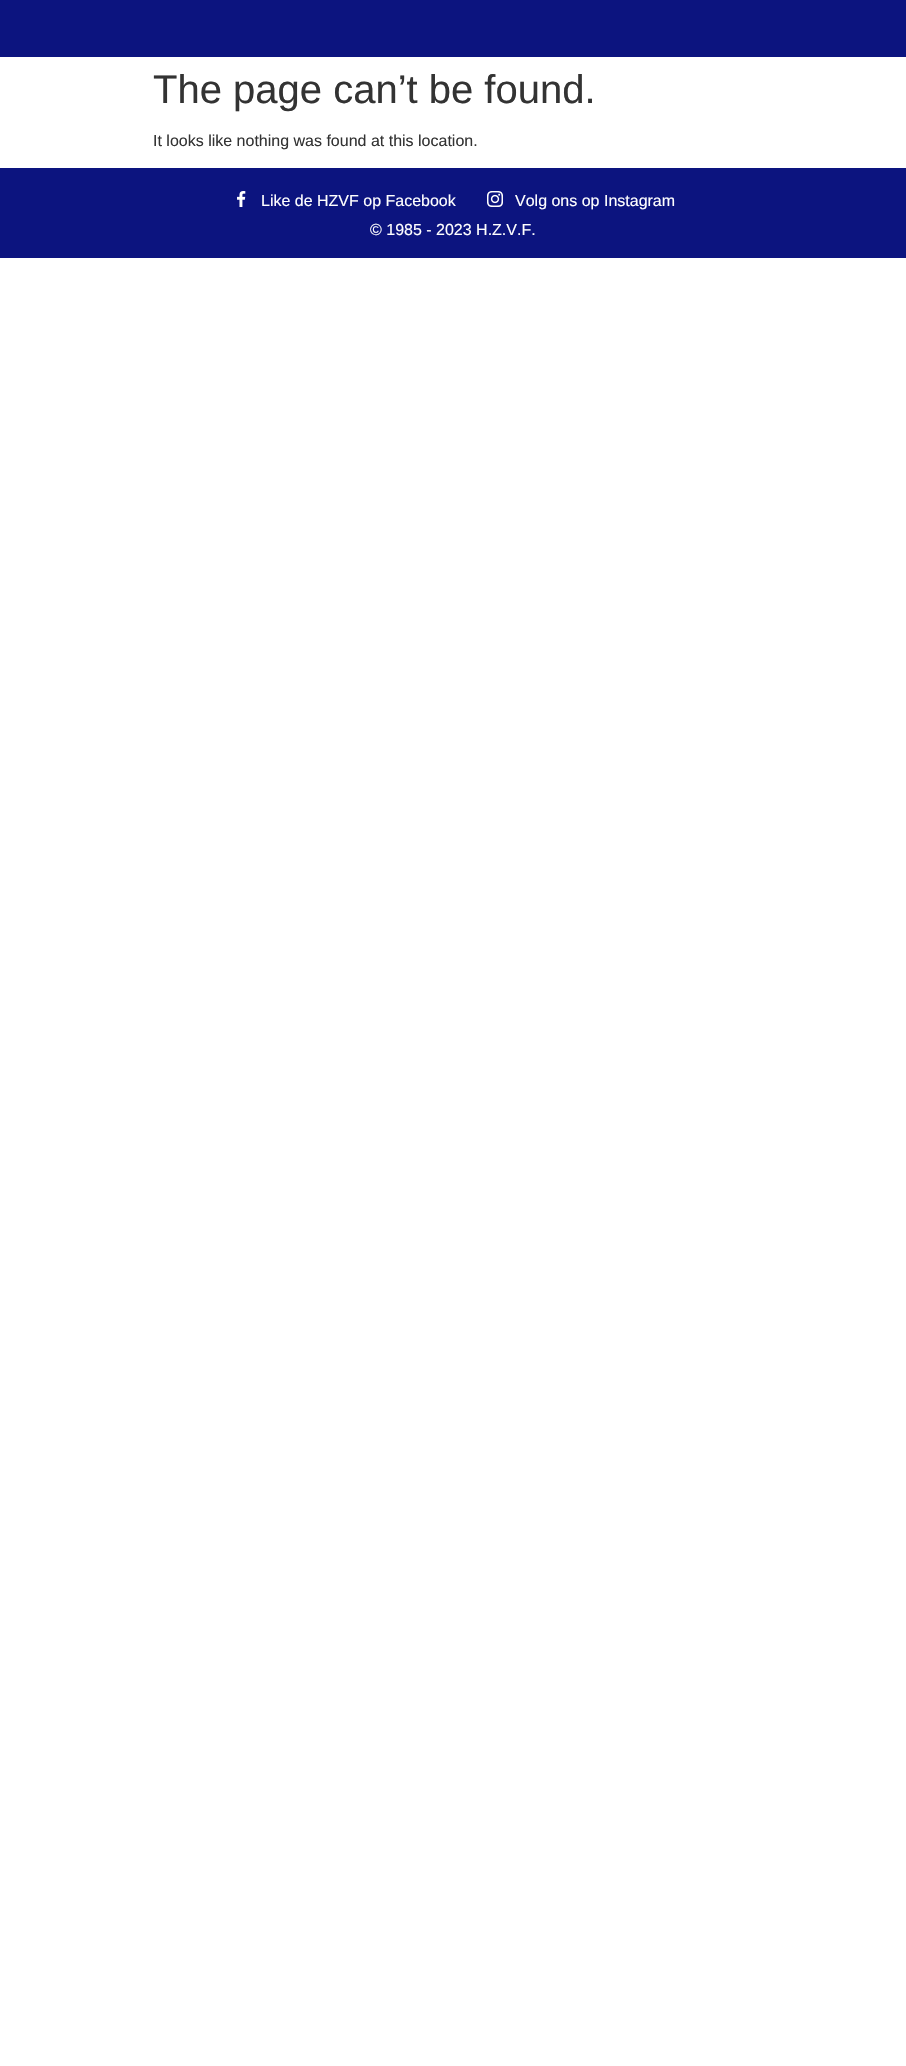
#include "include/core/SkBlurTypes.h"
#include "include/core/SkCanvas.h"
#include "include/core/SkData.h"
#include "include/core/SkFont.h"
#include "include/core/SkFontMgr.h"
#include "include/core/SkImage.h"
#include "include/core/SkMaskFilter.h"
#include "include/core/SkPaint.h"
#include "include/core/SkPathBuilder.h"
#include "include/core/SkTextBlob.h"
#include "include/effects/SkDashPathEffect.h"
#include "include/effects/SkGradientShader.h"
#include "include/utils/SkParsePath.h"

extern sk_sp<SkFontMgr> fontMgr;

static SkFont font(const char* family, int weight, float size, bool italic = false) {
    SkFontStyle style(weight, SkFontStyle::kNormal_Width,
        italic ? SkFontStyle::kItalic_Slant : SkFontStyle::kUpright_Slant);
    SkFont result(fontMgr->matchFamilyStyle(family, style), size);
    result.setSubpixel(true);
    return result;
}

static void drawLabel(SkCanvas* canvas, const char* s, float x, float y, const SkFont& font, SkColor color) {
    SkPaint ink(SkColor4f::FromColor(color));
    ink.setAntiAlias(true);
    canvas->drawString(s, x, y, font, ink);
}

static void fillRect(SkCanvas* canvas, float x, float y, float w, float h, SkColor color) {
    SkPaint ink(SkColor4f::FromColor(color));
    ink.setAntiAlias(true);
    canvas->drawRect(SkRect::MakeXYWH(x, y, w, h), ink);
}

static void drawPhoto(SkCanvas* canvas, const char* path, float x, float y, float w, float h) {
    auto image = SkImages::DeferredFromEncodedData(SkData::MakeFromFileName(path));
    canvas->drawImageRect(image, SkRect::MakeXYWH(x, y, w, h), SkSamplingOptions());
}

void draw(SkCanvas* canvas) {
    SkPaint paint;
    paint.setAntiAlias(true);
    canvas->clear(0xFFFFFFFF);
    fillRect(canvas, 0, 0, 906, 57, 0xFF0C147F);
    SkFont font1 = font("Liberation Sans", 400, 40);
    drawLabel(canvas, "The page can’t be found.", 153, 103, font1, 0xFF333333);
    SkFont font2 = font("Liberation Sans", 400, 16);
    drawLabel(canvas, "It looks like nothing was found at this location.", 153, 146, font2, 0xFF333333);
    fillRect(canvas, 0, 168, 906, 90, 0xFF0C147F);
    drawPhoto(canvas, "assets/img1.png", 237, 191, 9, 16);
    drawLabel(canvas, "Like de HZVF op Facebook", 261, 206, font2, 0xFFFFFFFF);
    drawPhoto(canvas, "assets/img2.png", 487, 191, 16, 16);
    drawLabel(canvas, "Volg ons op Instagram", 515, 206, font2, 0xFFFFFFFF);
    drawLabel(canvas, "© 1985 - 2023 H.Z.V.F.", 370, 235, font2, 0xFFFFFFFF);
}
